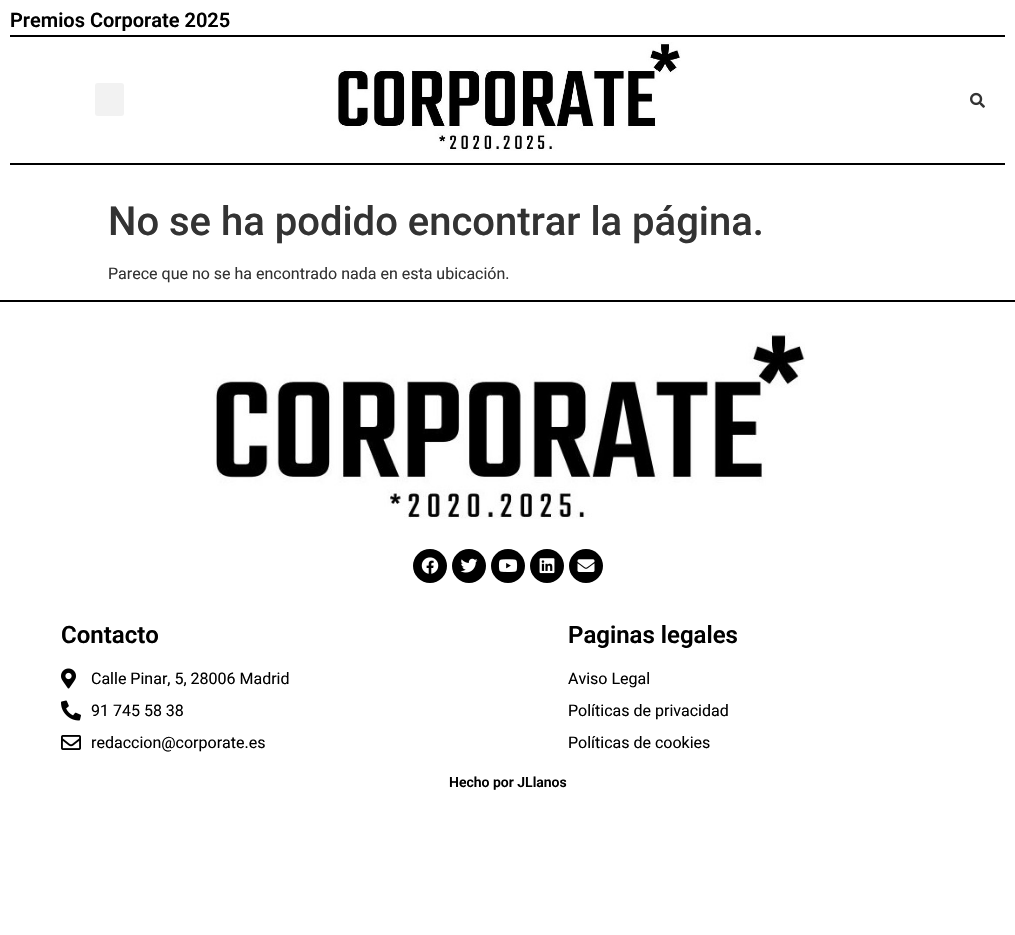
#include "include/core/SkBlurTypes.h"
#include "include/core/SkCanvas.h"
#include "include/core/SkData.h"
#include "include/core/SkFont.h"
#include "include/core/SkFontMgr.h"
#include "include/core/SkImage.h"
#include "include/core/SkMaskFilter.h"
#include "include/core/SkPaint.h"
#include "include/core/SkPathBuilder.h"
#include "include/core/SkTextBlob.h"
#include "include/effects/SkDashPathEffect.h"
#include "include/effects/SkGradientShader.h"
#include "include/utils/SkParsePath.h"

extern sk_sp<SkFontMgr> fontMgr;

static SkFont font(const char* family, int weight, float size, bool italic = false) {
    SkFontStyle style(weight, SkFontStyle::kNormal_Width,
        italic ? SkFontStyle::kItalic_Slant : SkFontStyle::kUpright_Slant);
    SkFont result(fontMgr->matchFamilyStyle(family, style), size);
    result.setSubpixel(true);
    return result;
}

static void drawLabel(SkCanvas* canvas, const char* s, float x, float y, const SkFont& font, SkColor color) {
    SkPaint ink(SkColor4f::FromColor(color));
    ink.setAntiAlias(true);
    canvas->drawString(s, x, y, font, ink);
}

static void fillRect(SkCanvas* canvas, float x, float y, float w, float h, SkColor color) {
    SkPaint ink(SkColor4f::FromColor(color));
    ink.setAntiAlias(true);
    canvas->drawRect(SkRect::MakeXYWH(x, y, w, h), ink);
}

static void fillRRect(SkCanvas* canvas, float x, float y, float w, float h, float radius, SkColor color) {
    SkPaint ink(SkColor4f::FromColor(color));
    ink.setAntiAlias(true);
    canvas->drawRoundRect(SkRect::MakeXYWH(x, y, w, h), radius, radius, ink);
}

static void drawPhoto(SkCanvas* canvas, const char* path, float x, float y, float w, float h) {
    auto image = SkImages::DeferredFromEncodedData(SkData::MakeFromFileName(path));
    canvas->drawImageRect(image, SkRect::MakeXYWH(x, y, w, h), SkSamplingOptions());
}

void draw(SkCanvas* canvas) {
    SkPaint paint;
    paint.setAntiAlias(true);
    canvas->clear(0xFFFFFFFF);
    SkFont font1 = font("Roboto", 600, 20);
    drawLabel(canvas, "Premios Corporate 2025", 10, 27, font1, 0xFF000000);
    fillRect(canvas, 10, 35, 995, 2, 0xFF000000);
    fillRRect(canvas, 95, 83, 29, 33, 3, 0xFFF2F2F2);
    drawPhoto(canvas, "assets/img1.png", 337, 42, 344, 109);
    drawPhoto(canvas, "assets/img2.png", 970, 92, 15, 16);
    fillRect(canvas, 10, 163, 995, 2, 0xFF000000);
    SkFont font2 = font("Roboto", 500, 40);
    drawLabel(canvas, "No se ha podido encontrar la página.", 108, 235, font2, 0xFF333333);
    SkFont font3 = font("Roboto", 400, 16);
    drawLabel(canvas, "Parece que no se ha encontrado nada en esta ubicación.", 108, 279, font3, 0xFF333333);
    fillRect(canvas, 0, 300, 1015, 2, 0xFF000000);
    drawPhoto(canvas, "assets/img3.png", 213, 332, 592, 187);
    paint.setColor(0xFF000000);
    canvas->drawCircle(430, 566, 17, paint);
    drawPhoto(canvas, "assets/img4.png", 421, 557, 18, 17);
    canvas->drawCircle(469, 566, 17, paint);
    drawPhoto(canvas, "assets/img5.png", 460, 558, 18, 15);
    canvas->drawCircle(508, 566, 17, paint);
    drawPhoto(canvas, "assets/img6.png", 498, 559, 20, 13);
    canvas->drawCircle(547, 566, 17, paint);
    drawPhoto(canvas, "assets/img7.png", 539, 558, 16, 16);
    canvas->drawCircle(586, 566, 17, paint);
    drawPhoto(canvas, "assets/img8.png", 577, 559, 18, 13);
    SkFont font4 = font("Roboto", 600, 24);
    drawLabel(canvas, "Contacto", 61, 643, font4, 0xFF000000);
    drawPhoto(canvas, "assets/img9.png", 61, 668, 15, 21);
    drawLabel(canvas, "Calle Pinar, 5, 28006 Madrid", 91, 684, font3, 0xFF000000);
    drawPhoto(canvas, "assets/img10.png", 61, 700, 20, 21);
    drawLabel(canvas, "91 745 58 38", 91, 716, font3, 0xFF000000);
    drawPhoto(canvas, "assets/img11.png", 61, 735, 20, 15);
    drawLabel(canvas, "redaccion@corporate.es", 91, 748, font3, 0xFF000000);
    drawLabel(canvas, "Paginas legales", 568, 643, font4, 0xFF000000);
    drawLabel(canvas, "Aviso Legal", 568, 684, font3, 0xFF000000);
    drawLabel(canvas, "Políticas de privacidad", 568, 716, font3, 0xFF000000);
    drawLabel(canvas, "Políticas de cookies", 568, 748, font3, 0xFF000000);
    SkFont font5 = font("Roboto", 600, 14);
    drawLabel(canvas, "Hecho por JLlanos", 449, 787, font5, 0xFF000000);
}
